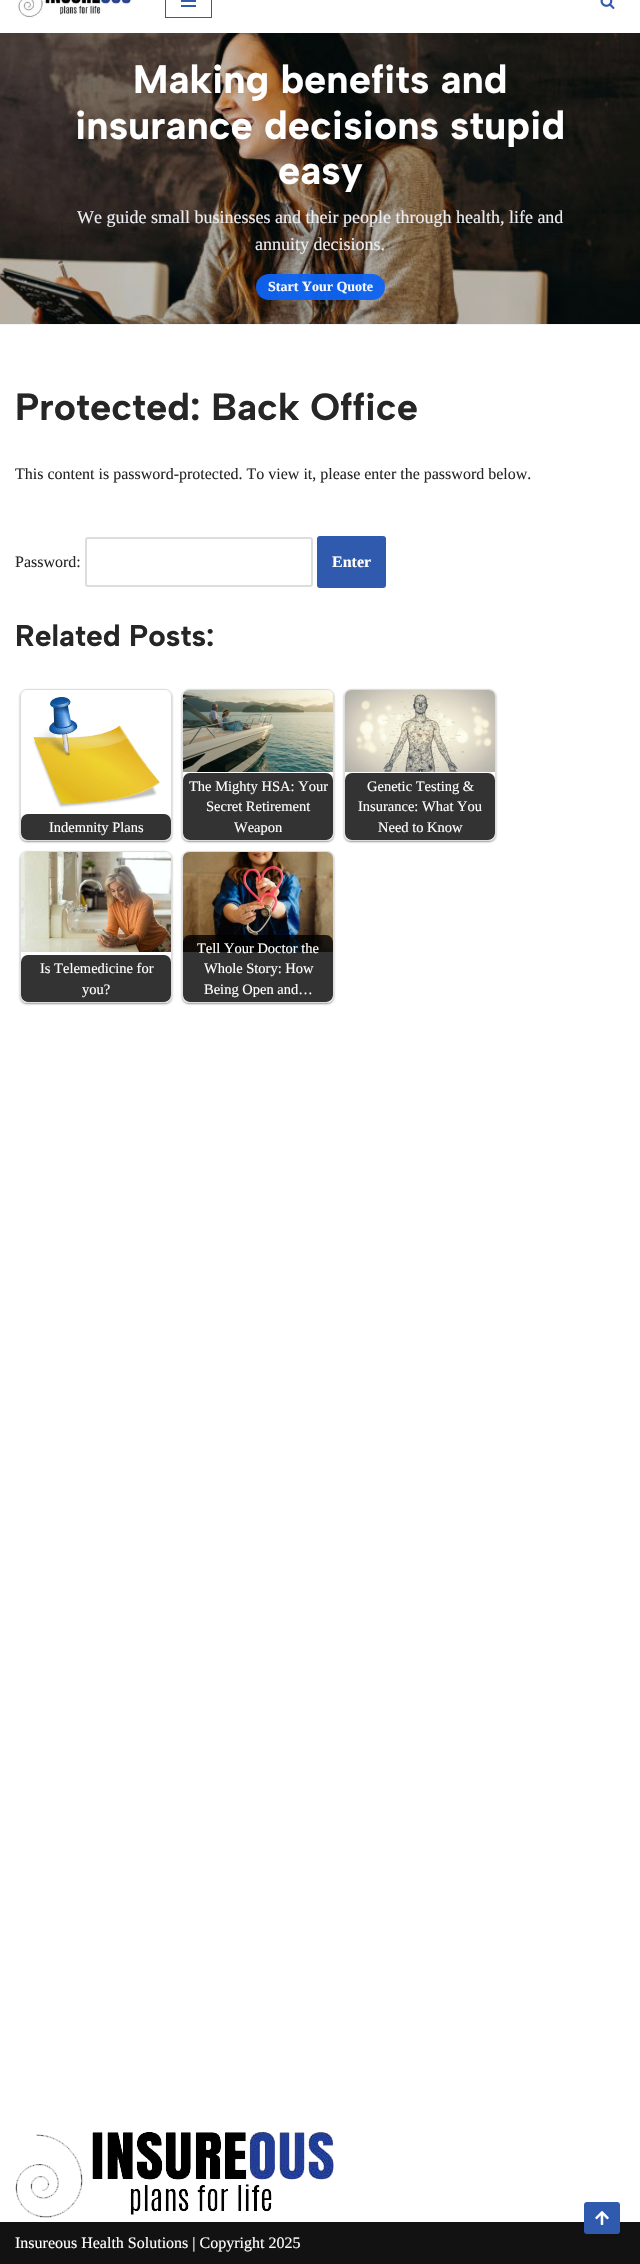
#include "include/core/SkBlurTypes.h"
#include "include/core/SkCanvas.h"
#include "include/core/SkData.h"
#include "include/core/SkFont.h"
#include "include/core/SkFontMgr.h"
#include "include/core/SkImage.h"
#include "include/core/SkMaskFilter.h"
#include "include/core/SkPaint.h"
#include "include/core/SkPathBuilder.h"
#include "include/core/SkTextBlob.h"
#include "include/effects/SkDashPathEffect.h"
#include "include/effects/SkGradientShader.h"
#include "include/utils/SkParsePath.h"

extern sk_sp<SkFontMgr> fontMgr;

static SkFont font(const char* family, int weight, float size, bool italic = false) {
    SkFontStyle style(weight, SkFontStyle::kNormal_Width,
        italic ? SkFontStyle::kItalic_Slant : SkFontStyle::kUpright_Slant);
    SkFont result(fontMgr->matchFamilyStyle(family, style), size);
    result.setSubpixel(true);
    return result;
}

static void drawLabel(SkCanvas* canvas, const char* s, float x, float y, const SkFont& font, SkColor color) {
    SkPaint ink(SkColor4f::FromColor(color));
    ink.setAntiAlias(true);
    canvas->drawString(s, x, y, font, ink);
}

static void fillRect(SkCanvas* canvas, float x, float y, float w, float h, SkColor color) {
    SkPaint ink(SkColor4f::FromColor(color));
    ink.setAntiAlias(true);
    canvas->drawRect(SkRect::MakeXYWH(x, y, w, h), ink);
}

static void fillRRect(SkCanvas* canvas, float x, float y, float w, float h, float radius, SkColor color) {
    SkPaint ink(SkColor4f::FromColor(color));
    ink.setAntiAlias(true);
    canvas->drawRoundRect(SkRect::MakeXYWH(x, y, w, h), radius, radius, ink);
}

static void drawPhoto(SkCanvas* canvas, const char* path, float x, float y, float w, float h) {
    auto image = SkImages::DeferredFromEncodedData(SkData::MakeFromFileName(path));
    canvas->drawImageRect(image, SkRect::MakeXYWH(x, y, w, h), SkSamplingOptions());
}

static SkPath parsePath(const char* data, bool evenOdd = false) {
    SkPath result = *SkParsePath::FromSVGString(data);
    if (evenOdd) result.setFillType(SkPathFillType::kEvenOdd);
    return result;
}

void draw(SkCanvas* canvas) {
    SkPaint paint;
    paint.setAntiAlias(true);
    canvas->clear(0xFFFFFFFF);
    drawPhoto(canvas, "assets/img1.png", 17, 0, 118, 18);
    paint.setStroke(true);
    paint.setStrokeWidth(1);
    paint.setColor(0xFF2F5AAE);
    canvas->drawRect(SkRect::MakeXYWH(165.5f, -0.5f, 46, 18), paint);
    fillRect(canvas, 181, 0, 15, 2, 0xFF2F5AAE);
    fillRect(canvas, 181, 5, 15, 2, 0xFF2F5AAE);
    drawPhoto(canvas, "assets/img2.png", 600, 0, 15, 9);
    drawPhoto(canvas, "assets/img3.png", 0, 33, 640, 291);
    fillRect(canvas, 0, 324, 640, 1, 0xFFF4F5F7);
    SkFont font1 = font("Albert Sans", 700, 39.75f);
    drawLabel(canvas, "Making benefits and", 133, 93, font1, 0xFFFFFFFF);
    drawLabel(canvas, "insurance decisions stupid", 75, 139, font1, 0xFFFFFFFF);
    drawLabel(canvas, "easy", 278, 184, font1, 0xFFFFFFFF);
    SkFont font2 = font("Liberation Serif", 400, 18);
    drawLabel(canvas, "We guide small businesses and their people through health, life and", 77, 223, font2, 0xFFECEDF1);
    drawLabel(canvas, "annuity decisions.", 255, 250, font2, 0xFFECEDF1);
    fillRRect(canvas, 256, 274, 129, 26, 13, 0xF20D63F3);
    SkFont font3 = font("Liberation Serif", 700, 14);
    drawLabel(canvas, "Start Your Quote", 268, 291, font3, 0xFFF3F7FE);
    SkFont font4 = font("Albert Sans", 700, 38);
    drawLabel(canvas, "Protected: Back Office", 15, 420, font4, 0xFF272626);
    SkFont font5 = font("Liberation Serif", 400, 16);
    drawLabel(canvas, "This content is password-protected. To view it, please enter the password below.", 15, 479, font5, 0xFF272626);
    drawLabel(canvas, "Password:", 15, 567, font5, 0xFF272626);
    paint.setStrokeWidth(2);
    paint.setColor(0xFFDDDDDD);
    canvas->drawRoundRect(SkRect::MakeXYWH(86, 538, 226, 48), 2, 2, paint);
    fillRRect(canvas, 317, 536, 69, 52, 3, 0xFF2F5AAE);
    SkFont font6 = font("Liberation Serif", 700, 16);
    drawLabel(canvas, "Enter", 332, 567, font6, 0xFFFFFFFF);
    SkFont font7 = font("Albert Sans", 700, 30);
    drawLabel(canvas, "Related Posts:", 15, 646, font7, 0xFF272626);
    canvas->save();
    canvas->clipPath(parsePath("M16 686H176V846H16ZM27 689H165C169 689 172 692 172 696V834C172 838 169 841 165 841H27C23 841 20 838 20 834V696C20 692 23 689 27 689Z", true), true);
    paint.setStroke(false);
    paint.setColor(0x66000000);
    paint.setMaskFilter(SkMaskFilter::MakeBlur(kNormal_SkBlurStyle, 1));
    canvas->drawRoundRect(SkRect::MakeXYWH(20, 690, 152, 152), 7, 7, paint);
    paint.setMaskFilter(nullptr);
    canvas->restore();
    paint.setStroke(true);
    paint.setStrokeWidth(1);
    paint.setColor(0xFFDDDDDD);
    canvas->drawRoundRect(SkRect::MakeXYWH(20.5f, 689.5f, 151, 151), 6.5f, 6.5f, paint);
    drawPhoto(canvas, "assets/img4.png", 33, 697, 127, 111);
    canvas->save();
    canvas->clipPath(parsePath("M27 690H165C168.5 690 171 692.5 171 696V834C171 837.5 168.5 840 165 840H27C23.5 840 21 837.5 21 834V696C21 692.5 23.5 690 27 690Z"), true);
    fillRRect(canvas, 21, 814, 150, 26, 7, 0xFF333333);
    canvas->restore();
    SkFont font8 = font("Liberation Serif", 400, 14.5f);
    drawLabel(canvas, "Indemnity Plans", 49, 832, font8, 0xFFFFFFFF);
    canvas->save();
    canvas->clipPath(parsePath("M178 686H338V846H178ZM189 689H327C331 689 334 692 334 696V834C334 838 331 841 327 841H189C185 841 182 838 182 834V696C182 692 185 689 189 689Z", true), true);
    paint.setStroke(false);
    paint.setColor(0x66000000);
    paint.setMaskFilter(SkMaskFilter::MakeBlur(kNormal_SkBlurStyle, 1));
    canvas->drawRoundRect(SkRect::MakeXYWH(182, 690, 152, 152), 7, 7, paint);
    paint.setMaskFilter(nullptr);
    canvas->restore();
    paint.setStroke(true);
    paint.setColor(0xFFDDDDDD);
    canvas->drawRoundRect(SkRect::MakeXYWH(182.5f, 689.5f, 151, 151), 6.5f, 6.5f, paint);
    drawPhoto(canvas, "assets/img5.png", 183, 690, 150, 82);
    canvas->save();
    canvas->clipPath(parsePath("M189 690H327C330.5 690 333 692.5 333 696V834C333 837.5 330.5 840 327 840H189C185.5 840 183 837.5 183 834V696C183 692.5 185.5 690 189 690Z"), true);
    fillRRect(canvas, 183, 773, 150, 67, 7, 0xFF333333);
    canvas->restore();
    drawLabel(canvas, "The Mighty HSA: Your", 189, 791, font8, 0xFFFFFFFF);
    drawLabel(canvas, "Secret Retirement", 206, 811, font8, 0xFFFFFFFF);
    drawLabel(canvas, "Weapon", 234, 832, font8, 0xFFFFFFFF);
    canvas->save();
    canvas->clipPath(parsePath("M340 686H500V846H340ZM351 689H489C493 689 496 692 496 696V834C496 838 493 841 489 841H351C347 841 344 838 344 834V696C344 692 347 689 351 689Z", true), true);
    paint.setStroke(false);
    paint.setColor(0x66000000);
    paint.setMaskFilter(SkMaskFilter::MakeBlur(kNormal_SkBlurStyle, 1));
    canvas->drawRoundRect(SkRect::MakeXYWH(344, 690, 152, 152), 7, 7, paint);
    paint.setMaskFilter(nullptr);
    canvas->restore();
    paint.setStroke(true);
    paint.setColor(0xFFDDDDDD);
    canvas->drawRoundRect(SkRect::MakeXYWH(344.5f, 689.5f, 151, 151), 6.5f, 6.5f, paint);
    drawPhoto(canvas, "assets/img6.png", 345, 690, 150, 82);
    canvas->save();
    canvas->clipPath(parsePath("M351 690H489C492.5 690 495 692.5 495 696V834C495 837.5 492.5 840 489 840H351C347.5 840 345 837.5 345 834V696C345 692.5 347.5 690 351 690Z"), true);
    fillRRect(canvas, 345, 773, 150, 67, 7, 0xFF333333);
    canvas->restore();
    drawLabel(canvas, "Genetic Testing &", 367, 791, font8, 0xFFFFFFFF);
    drawLabel(canvas, "Insurance: What You", 358, 811, font8, 0xFFFFFFFF);
    drawLabel(canvas, "Need to Know", 378, 832, font8, 0xFFFFFFFF);
    canvas->save();
    canvas->clipPath(parsePath("M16 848H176V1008H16ZM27 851H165C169 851 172 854 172 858V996C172 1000 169 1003 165 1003H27C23 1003 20 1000 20 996V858C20 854 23 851 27 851Z", true), true);
    paint.setStroke(false);
    paint.setColor(0x66000000);
    paint.setMaskFilter(SkMaskFilter::MakeBlur(kNormal_SkBlurStyle, 1));
    canvas->drawRoundRect(SkRect::MakeXYWH(20, 852, 152, 152), 7, 7, paint);
    paint.setMaskFilter(nullptr);
    canvas->restore();
    paint.setStroke(true);
    paint.setColor(0xFFDDDDDD);
    canvas->drawRoundRect(SkRect::MakeXYWH(20.5f, 851.5f, 151, 151), 6.5f, 6.5f, paint);
    drawPhoto(canvas, "assets/img7.png", 21, 852, 150, 100);
    canvas->save();
    canvas->clipPath(parsePath("M27 852H165C168.5 852 171 854.5 171 858V996C171 999.5 168.5 1002 165 1002H27C23.5 1002 21 999.5 21 996V858C21 854.5 23.5 852 27 852Z"), true);
    fillRRect(canvas, 21, 955, 150, 47, 7, 0xFF333333);
    canvas->restore();
    drawLabel(canvas, "Is Telemedicine for", 40, 973, font8, 0xFFFFFFFF);
    drawLabel(canvas, "you?", 82, 994, font8, 0xFFFFFFFF);
    canvas->save();
    canvas->clipPath(parsePath("M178 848H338V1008H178ZM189 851H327C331 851 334 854 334 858V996C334 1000 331 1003 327 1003H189C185 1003 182 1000 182 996V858C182 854 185 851 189 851Z", true), true);
    paint.setStroke(false);
    paint.setColor(0x66000000);
    paint.setMaskFilter(SkMaskFilter::MakeBlur(kNormal_SkBlurStyle, 1));
    canvas->drawRoundRect(SkRect::MakeXYWH(182, 852, 152, 152), 7, 7, paint);
    paint.setMaskFilter(nullptr);
    canvas->restore();
    paint.setStroke(true);
    paint.setColor(0xFFDDDDDD);
    canvas->drawRoundRect(SkRect::MakeXYWH(182.5f, 851.5f, 151, 151), 6.5f, 6.5f, paint);
    drawPhoto(canvas, "assets/img8.png", 183, 852, 150, 100);
    canvas->save();
    canvas->clipPath(parsePath("M189 852H327C330.5 852 333 854.5 333 858V996C333 999.5 330.5 1002 327 1002H189C185.5 1002 183 999.5 183 996V858C183 854.5 185.5 852 189 852Z"), true);
    fillRRect(canvas, 183, 935, 150, 67, 7, 0xCC000000);
    canvas->restore();
    drawLabel(canvas, "Tell Your Doctor the", 197, 953, font8, 0xFFFFFFFF);
    drawLabel(canvas, "Whole Story: How", 204, 973, font8, 0xFFFFFFFF);
    drawLabel(canvas, "Being Open and…", 204, 994, font8, 0xFFFFFFFF);
    fillRect(canvas, 0, 2222, 640, 42, 0xFF121212);
    fillRRect(canvas, 584, 2202, 36, 32, 3, 0xFF2F5AAE);
    drawPhoto(canvas, "assets/img9.png", 595, 2211, 14, 14);
    drawPhoto(canvas, "assets/img10.png", 15, 2131, 319, 87);
    drawLabel(canvas, "Insureous Health Solutions | Copyright 2025", 15, 2248, font5, 0xFFFFFFFF);
}
